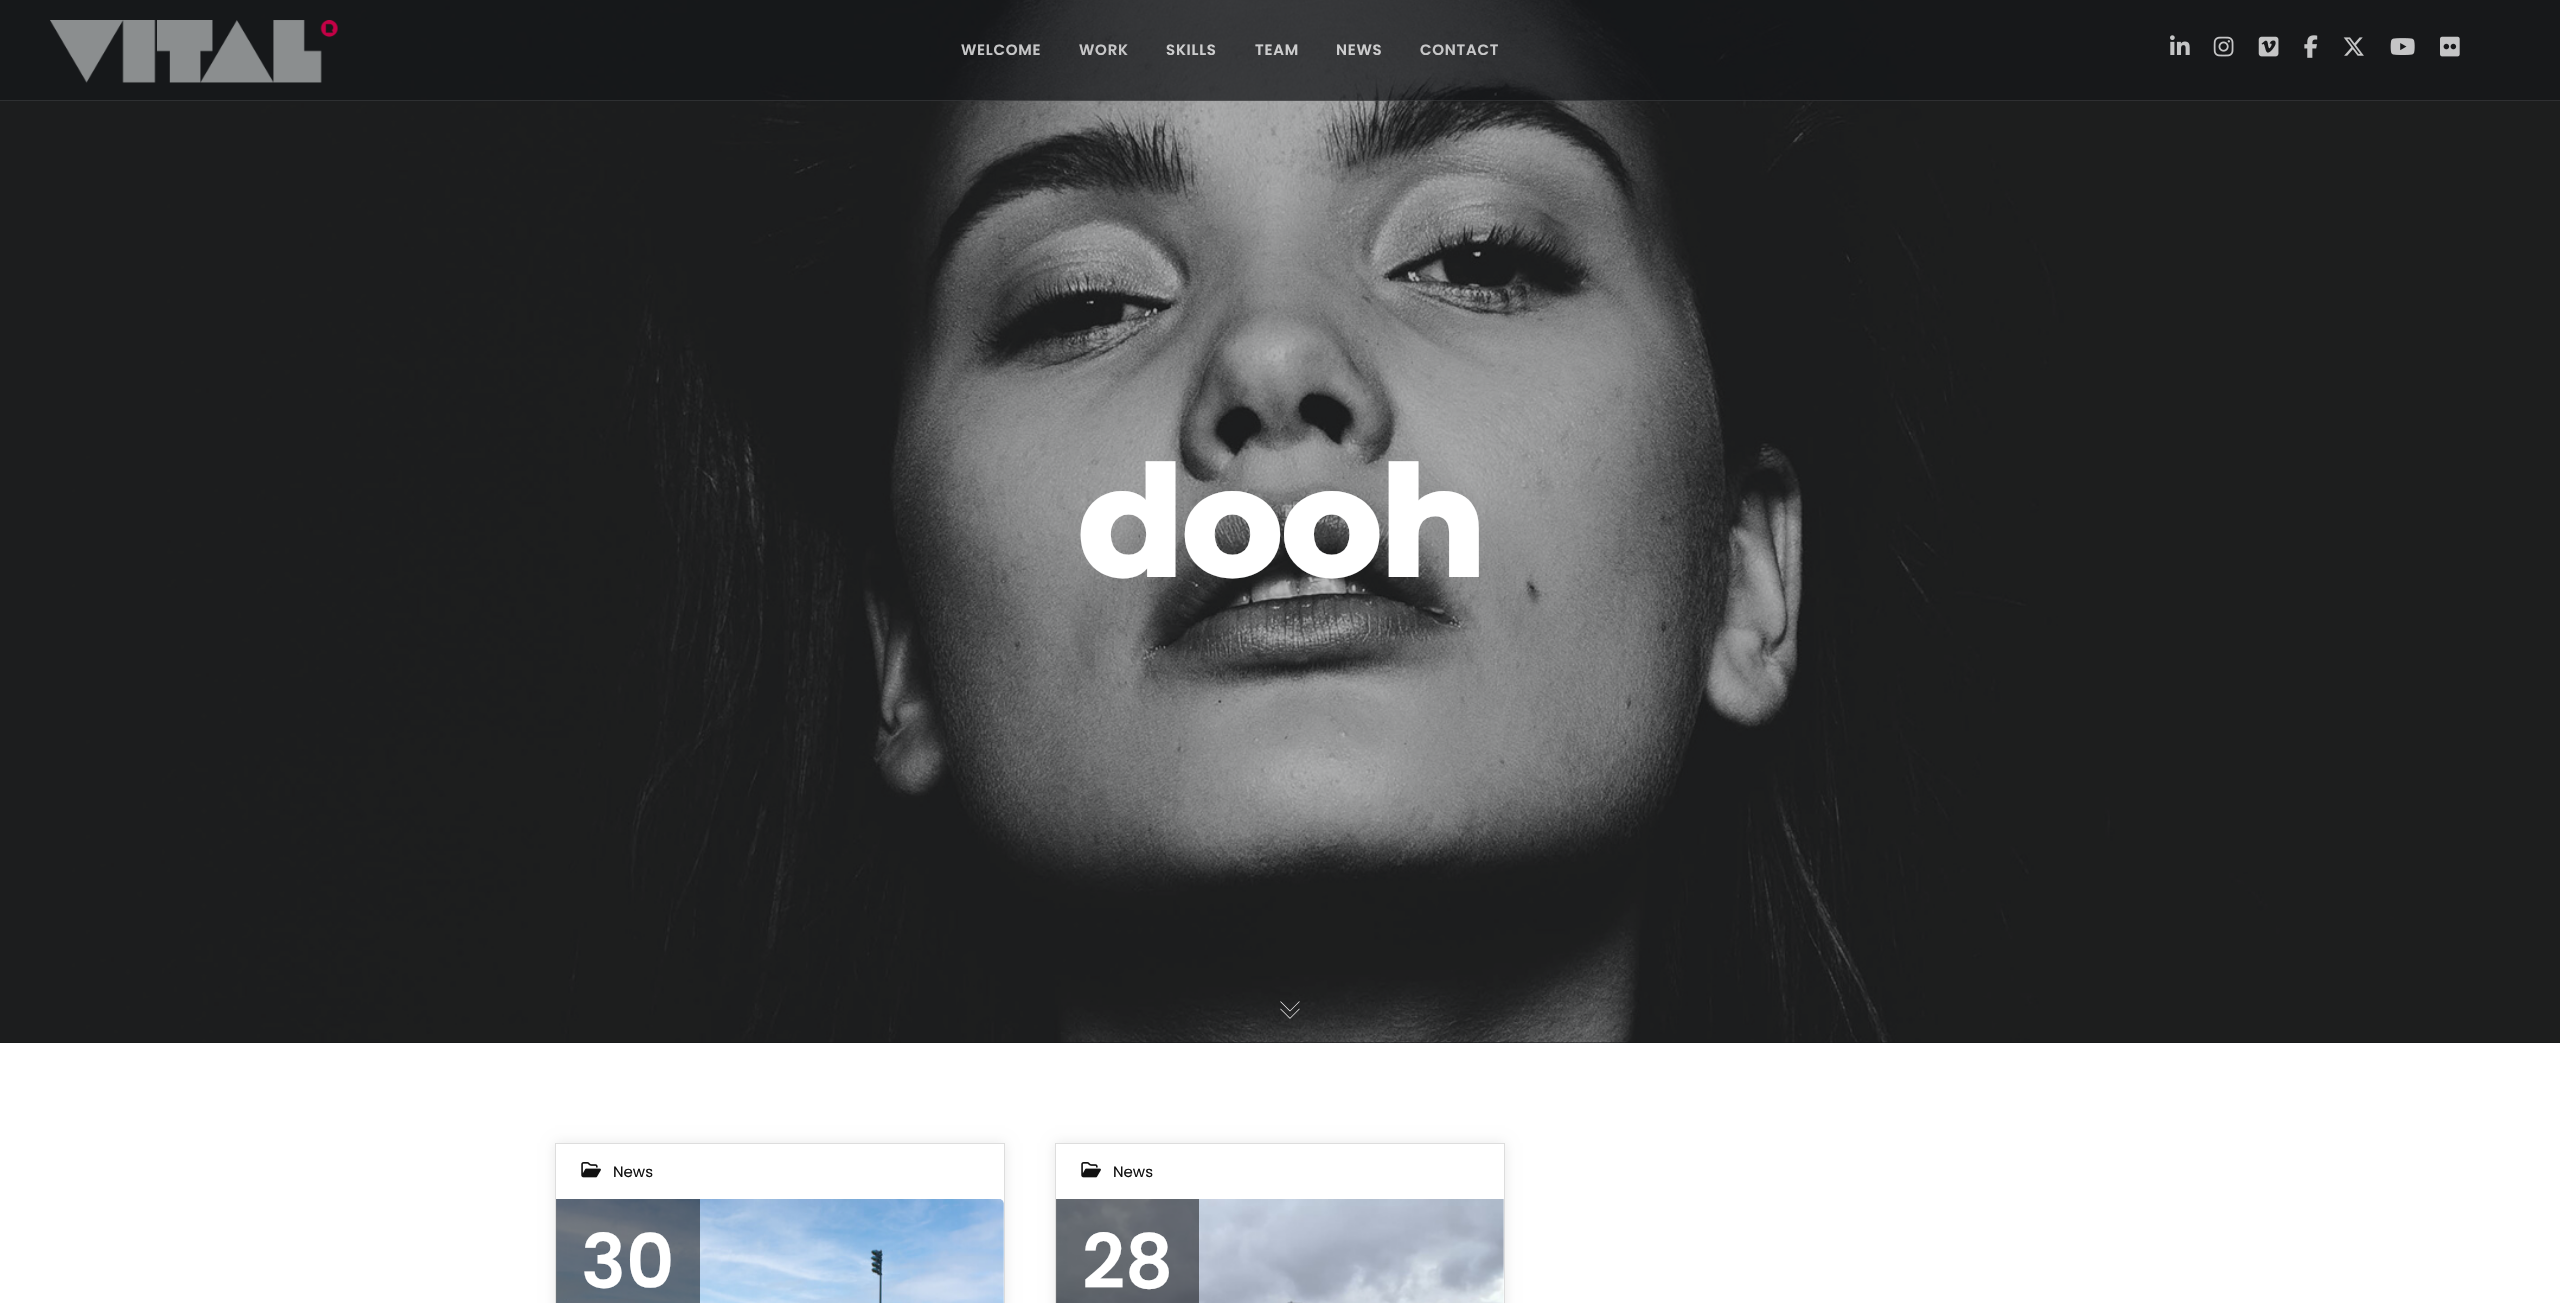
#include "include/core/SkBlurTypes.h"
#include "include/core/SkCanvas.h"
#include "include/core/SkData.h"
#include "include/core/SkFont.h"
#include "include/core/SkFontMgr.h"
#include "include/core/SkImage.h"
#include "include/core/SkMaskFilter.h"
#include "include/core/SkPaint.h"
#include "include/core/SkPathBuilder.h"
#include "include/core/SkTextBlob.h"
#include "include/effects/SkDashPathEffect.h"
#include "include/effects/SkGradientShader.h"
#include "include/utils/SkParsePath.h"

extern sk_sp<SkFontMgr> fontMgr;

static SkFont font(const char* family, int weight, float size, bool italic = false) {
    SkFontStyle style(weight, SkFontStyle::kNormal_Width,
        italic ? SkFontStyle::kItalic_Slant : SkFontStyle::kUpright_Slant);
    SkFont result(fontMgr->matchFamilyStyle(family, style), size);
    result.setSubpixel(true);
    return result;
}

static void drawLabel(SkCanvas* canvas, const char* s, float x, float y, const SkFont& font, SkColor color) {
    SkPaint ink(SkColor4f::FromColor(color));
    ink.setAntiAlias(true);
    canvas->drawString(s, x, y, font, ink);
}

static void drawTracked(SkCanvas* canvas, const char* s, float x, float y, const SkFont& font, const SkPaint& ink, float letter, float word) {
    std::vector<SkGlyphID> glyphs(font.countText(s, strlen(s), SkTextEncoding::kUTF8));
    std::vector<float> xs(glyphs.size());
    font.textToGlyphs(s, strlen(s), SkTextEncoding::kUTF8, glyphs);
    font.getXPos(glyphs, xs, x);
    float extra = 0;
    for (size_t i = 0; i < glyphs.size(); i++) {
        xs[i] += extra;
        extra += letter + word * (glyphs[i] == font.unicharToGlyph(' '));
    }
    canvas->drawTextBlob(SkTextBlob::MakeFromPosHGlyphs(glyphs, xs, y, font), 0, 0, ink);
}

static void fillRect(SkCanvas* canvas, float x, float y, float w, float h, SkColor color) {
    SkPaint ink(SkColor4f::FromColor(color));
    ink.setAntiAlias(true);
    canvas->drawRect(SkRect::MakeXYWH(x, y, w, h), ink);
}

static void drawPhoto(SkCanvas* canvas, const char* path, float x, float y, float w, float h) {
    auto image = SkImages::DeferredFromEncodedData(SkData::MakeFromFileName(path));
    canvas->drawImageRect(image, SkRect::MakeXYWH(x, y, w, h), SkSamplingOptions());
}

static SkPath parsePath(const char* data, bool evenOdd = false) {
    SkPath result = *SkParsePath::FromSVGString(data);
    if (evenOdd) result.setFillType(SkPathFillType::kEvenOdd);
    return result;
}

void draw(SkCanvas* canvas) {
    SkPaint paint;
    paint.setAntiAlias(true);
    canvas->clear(0xFFFFFFFF);
    fillRect(canvas, 0, 1042, 2560, 1, 0xFF141618);
    drawPhoto(canvas, "assets/img9.png", 0, 0, 2560, 1043);
    fillRect(canvas, 0, 0, 2560, 101, 0xBF141618);
    fillRect(canvas, 0, 100, 2560, 1, 0x1AFFFFFF);
    drawPhoto(canvas, "assets/img1.png", 50, 20, 288, 63);
    SkFont font1 = font("Poppins", 600, 15);
    paint.setColor(0xFFC7C7C8);
    drawTracked(canvas, "WELCOME", 961, 55, font1, paint, 0.75f, 0);
    drawTracked(canvas, "WORK", 1079, 55, font1, paint, 0.75f, 0);
    paint.setColor(0xFFCDCDCE);
    drawTracked(canvas, "SKILLS", 1166, 55, font1, paint, 0.75f, 0);
    drawTracked(canvas, "TEAM", 1255, 55, font1, paint, 0.75f, 0);
    drawTracked(canvas, "NEWS", 1336, 55, font1, paint, 0.75f, 0);
    paint.setColor(0xFFC7C7C8);
    drawTracked(canvas, "CONTACT", 1420, 55, font1, paint, 0.75f, 0);
    drawPhoto(canvas, "assets/img2.png", 2170, 35, 20, 20);
    drawPhoto(canvas, "assets/img3.png", 2213, 36, 21, 21);
    drawPhoto(canvas, "assets/img4.png", 2258, 36, 21, 21);
    drawPhoto(canvas, "assets/img5.png", 2304, 35, 14, 23);
    drawPhoto(canvas, "assets/img6.png", 2343, 37, 21, 19);
    drawPhoto(canvas, "assets/img7.png", 2390, 38, 25, 17);
    drawPhoto(canvas, "assets/img8.png", 2440, 36, 20, 21);
    SkFont font2 = font("Montserrat", 800, 156);
    paint.setColor(0xFFFFFFFF);
    drawTracked(canvas, "dooh", 1076, 577, font2, paint, -4.5f, 0);
    drawPhoto(canvas, "assets/img10.png", 1280, 1001, 20, 18);
    canvas->save();
    canvas->clipPath(parsePath("M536 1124H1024V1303H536ZM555 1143H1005V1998H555Z", true), true);
    paint.setColor(0x17000000);
    paint.setMaskFilter(SkMaskFilter::MakeBlur(kNormal_SkBlurStyle, 6));
    canvas->drawRect(SkRect::MakeXYWH(555, 1143, 450, 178), paint);
    paint.setMaskFilter(nullptr);
    canvas->restore();
    paint.setStroke(true);
    paint.setStrokeWidth(1);
    paint.setColor(0xFFDDDDDD);
    canvas->drawRect(SkRect::MakeXYWH(555.5f, 1143.5f, 449, 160), paint);
    drawPhoto(canvas, "assets/img11.png", 581, 1162, 20, 16);
    SkFont font3 = font("Poppins", 400, 15);
    drawLabel(canvas, "News", 613, 1177, font3, 0xFF111111);
    drawPhoto(canvas, "assets/img12.png", 556, 1199, 448, 104);
    fillRect(canvas, 556, 1199, 144, 104, 0x80000000);
    SkFont font4 = font("Poppins", 600, 75);
    drawLabel(canvas, "30", 581, 1288, font4, 0xFFFFFFFF);
    canvas->save();
    canvas->clipPath(parsePath("M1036 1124H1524V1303H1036ZM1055 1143H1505V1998H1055Z", true), true);
    paint.setStroke(false);
    paint.setColor(0x17000000);
    paint.setMaskFilter(SkMaskFilter::MakeBlur(kNormal_SkBlurStyle, 6));
    canvas->drawRect(SkRect::MakeXYWH(1055, 1143, 450, 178), paint);
    paint.setMaskFilter(nullptr);
    canvas->restore();
    paint.setStroke(true);
    paint.setColor(0xFFDDDDDD);
    canvas->drawRect(SkRect::MakeXYWH(1055.5f, 1143.5f, 449, 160), paint);
    drawPhoto(canvas, "assets/img11.png", 1081, 1162, 20, 16);
    drawLabel(canvas, "News", 1113, 1177, font3, 0xFF111111);
    drawPhoto(canvas, "assets/img13.png", 1056, 1199, 448, 104);
    fillRect(canvas, 1056, 1199, 143, 104, 0x80000000);
    drawLabel(canvas, "28", 1082, 1288, font4, 0xFFFFFFFF);
}
